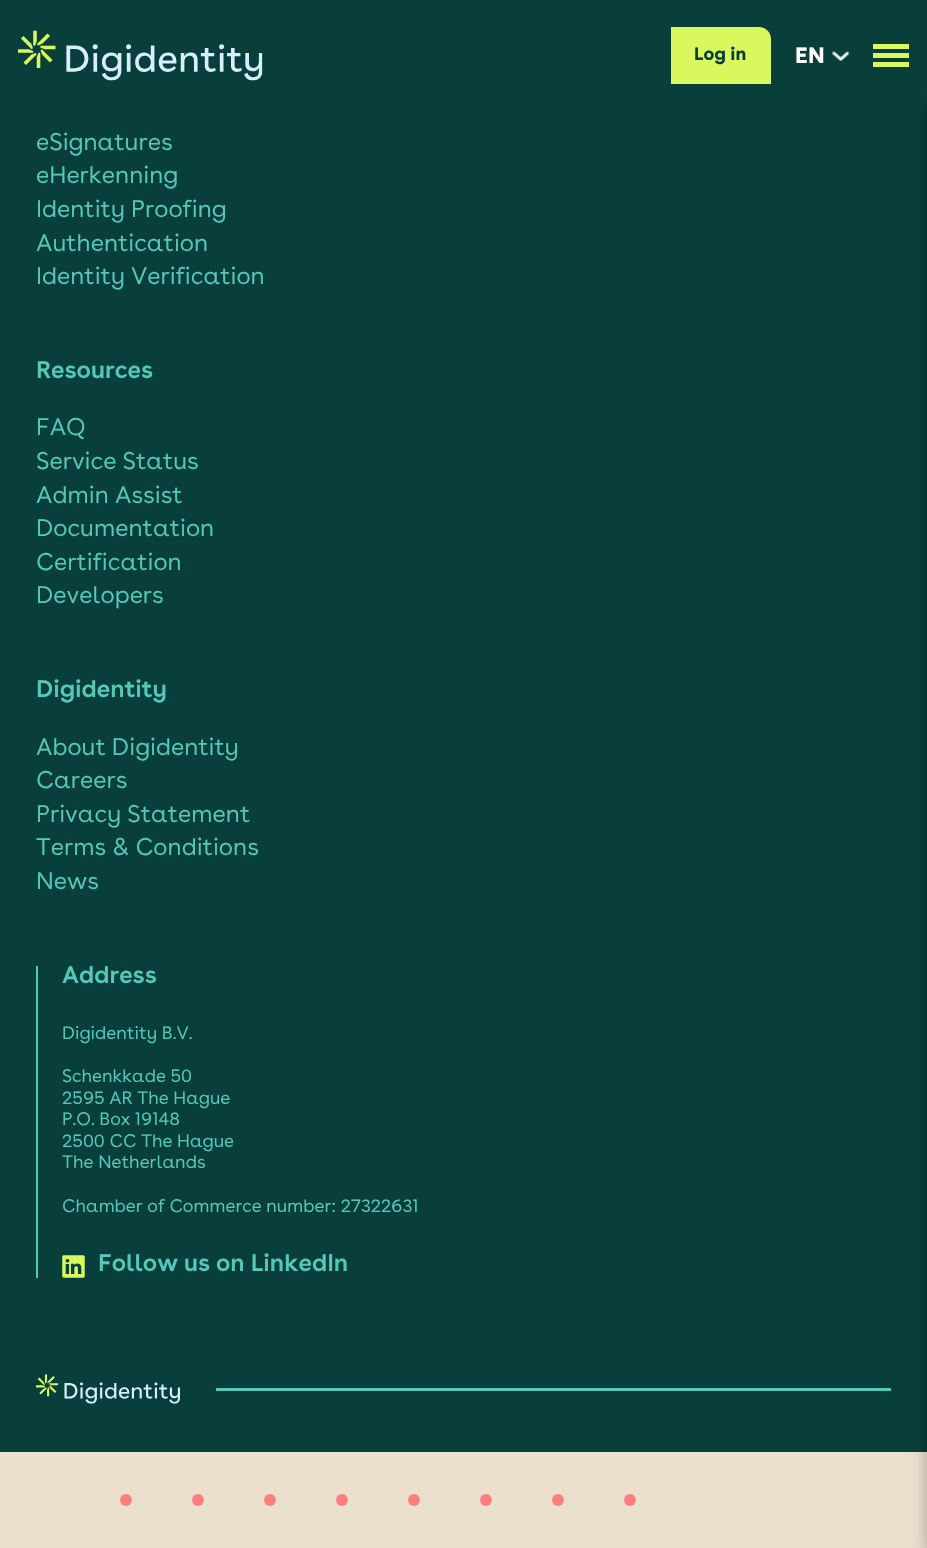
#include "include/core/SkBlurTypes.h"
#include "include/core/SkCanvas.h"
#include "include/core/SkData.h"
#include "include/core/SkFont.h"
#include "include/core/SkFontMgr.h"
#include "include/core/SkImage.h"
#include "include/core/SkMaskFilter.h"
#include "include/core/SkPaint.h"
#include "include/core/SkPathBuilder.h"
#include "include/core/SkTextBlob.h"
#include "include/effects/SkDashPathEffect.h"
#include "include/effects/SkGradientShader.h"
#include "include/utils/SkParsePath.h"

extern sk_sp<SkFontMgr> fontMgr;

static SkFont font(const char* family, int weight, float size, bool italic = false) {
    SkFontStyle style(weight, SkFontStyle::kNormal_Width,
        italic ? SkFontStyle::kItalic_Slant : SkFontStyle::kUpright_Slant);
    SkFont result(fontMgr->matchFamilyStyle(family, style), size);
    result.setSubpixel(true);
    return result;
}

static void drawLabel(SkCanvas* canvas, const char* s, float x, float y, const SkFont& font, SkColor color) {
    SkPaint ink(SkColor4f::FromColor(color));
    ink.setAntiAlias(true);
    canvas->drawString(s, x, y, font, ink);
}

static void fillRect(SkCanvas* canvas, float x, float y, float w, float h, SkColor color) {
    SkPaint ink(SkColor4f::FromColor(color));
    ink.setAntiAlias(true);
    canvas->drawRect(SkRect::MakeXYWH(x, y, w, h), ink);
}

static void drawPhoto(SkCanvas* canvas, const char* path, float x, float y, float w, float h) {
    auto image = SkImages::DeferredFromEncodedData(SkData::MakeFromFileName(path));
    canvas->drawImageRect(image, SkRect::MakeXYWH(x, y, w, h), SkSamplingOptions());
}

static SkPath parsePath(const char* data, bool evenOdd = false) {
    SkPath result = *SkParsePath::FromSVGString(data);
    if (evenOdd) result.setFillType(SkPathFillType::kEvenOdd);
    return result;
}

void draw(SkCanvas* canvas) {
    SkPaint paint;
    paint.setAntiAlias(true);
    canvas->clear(0xFF083F3B);
    drawPhoto(canvas, "assets/img1.png", 18, 30, 245, 51);
    paint.setColor(0xFFD8F85D);
    canvas->drawPath(parsePath("M671 27H759C765.5 27 771 32.5 771 39V84H671Z"), paint);
    SkFont font1 = font("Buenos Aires", 700, 18);
    drawLabel(canvas, "Log in", 694, 60, font1, 0xFF083F3B);
    SkFont font2 = font("Buenos Aires", 700, 22);
    drawLabel(canvas, "EN", 795, 63, font2, 0xFFFFFFFF);
    drawPhoto(canvas, "assets/img2.png", 832, 51, 18, 11);
    fillRect(canvas, 873, 44, 36, 5, 0xFFD8F85D);
    fillRect(canvas, 873, 53, 36, 5, 0xFFD8F85D);
    fillRect(canvas, 873, 62, 36, 5, 0xFFD8F85D);
    fillRect(canvas, 0, 1452, 927, 96, 0xFFEBDFCE);
    paint.setColor(0x26000000);
    paint.setMaskFilter(SkMaskFilter::MakeBlur(kNormal_SkBlurStyle, 7.5f));
    canvas->drawRect(SkRect::MakeXYWH(927, 99, 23, 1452), paint);
    paint.setMaskFilter(nullptr);
    paint.setMaskFilter(SkMaskFilter::MakeBlur(kNormal_SkBlurStyle, 7.5f));
    canvas->drawRect(SkRect::MakeXYWH(927, 99, 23, 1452), paint);
    paint.setMaskFilter(nullptr);
    SkFont font3 = font("Buenos Aires", 400, 24);
    drawLabel(canvas, "eSignatures", 36, 150, font3, 0xFF56C8BB);
    drawLabel(canvas, "eHerkenning", 36, 183, font3, 0xFF56C8BB);
    drawLabel(canvas, "Identity Proofing", 36, 217, font3, 0xFF56C8BB);
    drawLabel(canvas, "Authentication", 36, 251, font3, 0xFF56C8BB);
    drawLabel(canvas, "Identity Verification", 36, 284, font3, 0xFF56C8BB);
    SkFont font4 = font("Buenos Aires", 600, 24);
    drawLabel(canvas, "Resources", 36, 378, font4, 0xFF56C8BB);
    drawLabel(canvas, "FAQ", 36, 435, font3, 0xFF56C8BB);
    drawLabel(canvas, "Service Status", 36, 469, font3, 0xFF56C8BB);
    drawLabel(canvas, "Admin Assist", 36, 503, font3, 0xFF56C8BB);
    drawLabel(canvas, "Documentation", 36, 536, font3, 0xFF56C8BB);
    drawLabel(canvas, "Certification", 36, 570, font3, 0xFF56C8BB);
    drawLabel(canvas, "Developers", 36, 603, font3, 0xFF56C8BB);
    drawLabel(canvas, "Digidentity", 36, 697, font4, 0xFF56C8BB);
    drawLabel(canvas, "About Digidentity", 36, 755, font3, 0xFF56C8BB);
    drawLabel(canvas, "Careers", 36, 788, font3, 0xFF56C8BB);
    drawLabel(canvas, "Privacy Statement", 36, 822, font3, 0xFF56C8BB);
    drawLabel(canvas, "Terms & Conditions", 36, 855, font3, 0xFF56C8BB);
    drawLabel(canvas, "News", 36, 889, font3, 0xFF56C8BB);
    fillRect(canvas, 36, 966, 2, 312, 0xFF56C8BB);
    drawLabel(canvas, "Address", 62, 983, font4, 0xFF56C8BB);
    SkFont font5 = font("Buenos Aires", 400, 18);
    drawLabel(canvas, "Digidentity B.V.", 62, 1039, font5, 0xFF56C8BB);
    drawLabel(canvas, "Schenkkade 50", 62, 1082, font5, 0xFF56C8BB);
    drawLabel(canvas, "2595 AR The Hague", 62, 1104, font5, 0xFF56C8BB);
    drawLabel(canvas, "P.O. Box 19148", 62, 1125, font5, 0xFF56C8BB);
    drawLabel(canvas, "2500 CC The Hague", 62, 1147, font5, 0xFF56C8BB);
    drawLabel(canvas, "The Netherlands", 62, 1168, font5, 0xFF56C8BB);
    drawLabel(canvas, "Chamber of Commerce number: 27322631", 62, 1212, font5, 0xFF56C8BB);
    drawPhoto(canvas, "assets/img3.png", 62, 1255, 23, 23);
    drawLabel(canvas, "Follow us on LinkedIn", 98, 1271, font4, 0xFF56C8BB);
    drawPhoto(canvas, "assets/img4.png", 36, 1374, 144, 30);
    fillRect(canvas, 216, 1388, 675, 3, 0xFF56C8BB);
    paint.setColor(0xFFFF7F7F);
    canvas->drawCircle(126, 1500, 6, paint);
    canvas->drawCircle(198, 1500, 6, paint);
    canvas->drawCircle(270, 1500, 6, paint);
    canvas->drawCircle(342, 1500, 6, paint);
    canvas->drawCircle(414, 1500, 6, paint);
    canvas->drawCircle(486, 1500, 6, paint);
    canvas->drawCircle(558, 1500, 6, paint);
    canvas->drawCircle(630, 1500, 6, paint);
}
